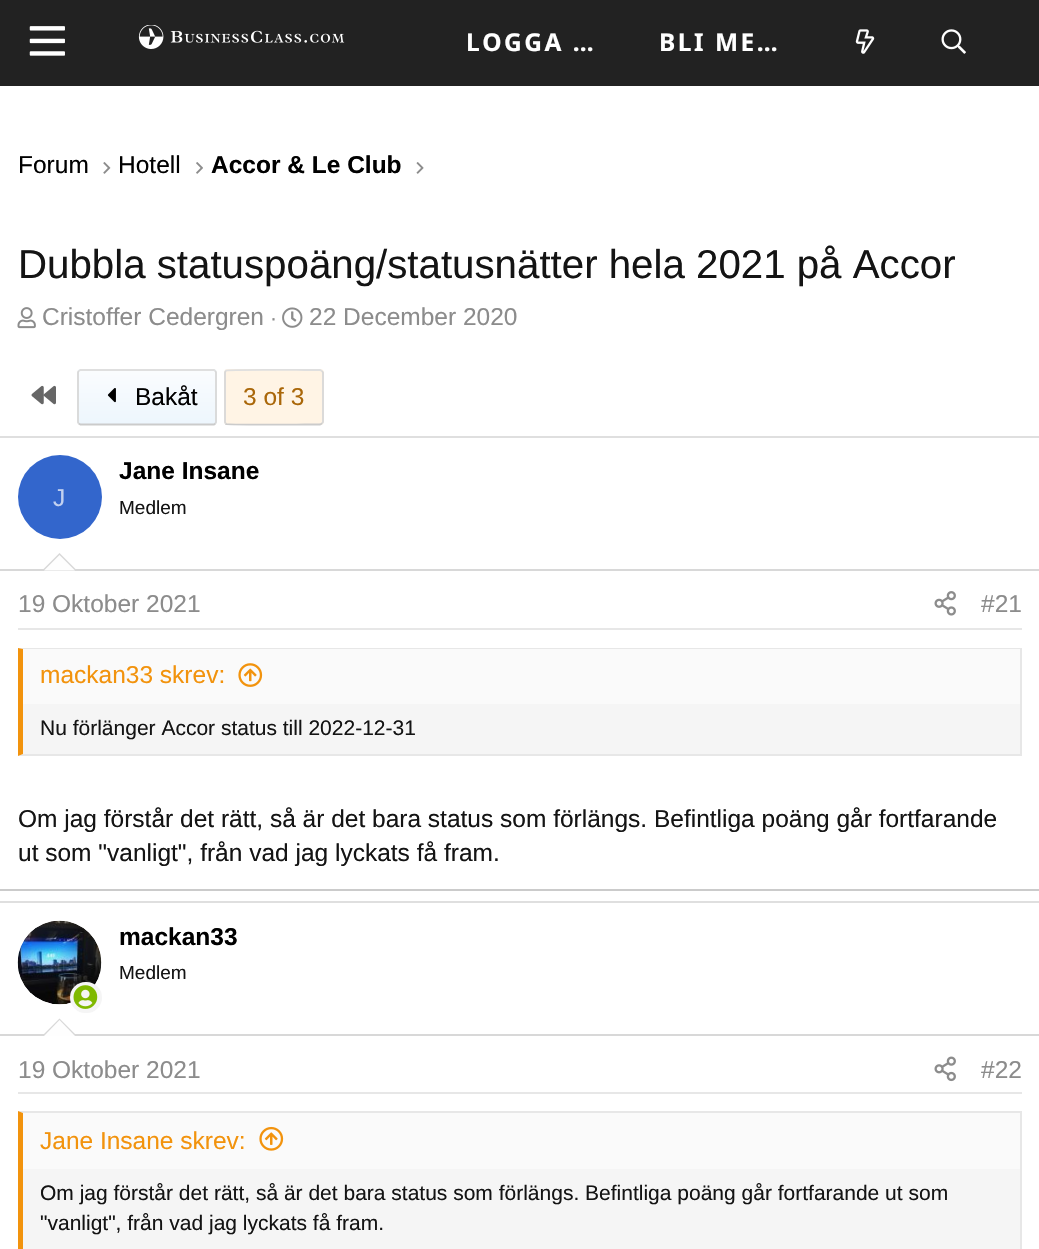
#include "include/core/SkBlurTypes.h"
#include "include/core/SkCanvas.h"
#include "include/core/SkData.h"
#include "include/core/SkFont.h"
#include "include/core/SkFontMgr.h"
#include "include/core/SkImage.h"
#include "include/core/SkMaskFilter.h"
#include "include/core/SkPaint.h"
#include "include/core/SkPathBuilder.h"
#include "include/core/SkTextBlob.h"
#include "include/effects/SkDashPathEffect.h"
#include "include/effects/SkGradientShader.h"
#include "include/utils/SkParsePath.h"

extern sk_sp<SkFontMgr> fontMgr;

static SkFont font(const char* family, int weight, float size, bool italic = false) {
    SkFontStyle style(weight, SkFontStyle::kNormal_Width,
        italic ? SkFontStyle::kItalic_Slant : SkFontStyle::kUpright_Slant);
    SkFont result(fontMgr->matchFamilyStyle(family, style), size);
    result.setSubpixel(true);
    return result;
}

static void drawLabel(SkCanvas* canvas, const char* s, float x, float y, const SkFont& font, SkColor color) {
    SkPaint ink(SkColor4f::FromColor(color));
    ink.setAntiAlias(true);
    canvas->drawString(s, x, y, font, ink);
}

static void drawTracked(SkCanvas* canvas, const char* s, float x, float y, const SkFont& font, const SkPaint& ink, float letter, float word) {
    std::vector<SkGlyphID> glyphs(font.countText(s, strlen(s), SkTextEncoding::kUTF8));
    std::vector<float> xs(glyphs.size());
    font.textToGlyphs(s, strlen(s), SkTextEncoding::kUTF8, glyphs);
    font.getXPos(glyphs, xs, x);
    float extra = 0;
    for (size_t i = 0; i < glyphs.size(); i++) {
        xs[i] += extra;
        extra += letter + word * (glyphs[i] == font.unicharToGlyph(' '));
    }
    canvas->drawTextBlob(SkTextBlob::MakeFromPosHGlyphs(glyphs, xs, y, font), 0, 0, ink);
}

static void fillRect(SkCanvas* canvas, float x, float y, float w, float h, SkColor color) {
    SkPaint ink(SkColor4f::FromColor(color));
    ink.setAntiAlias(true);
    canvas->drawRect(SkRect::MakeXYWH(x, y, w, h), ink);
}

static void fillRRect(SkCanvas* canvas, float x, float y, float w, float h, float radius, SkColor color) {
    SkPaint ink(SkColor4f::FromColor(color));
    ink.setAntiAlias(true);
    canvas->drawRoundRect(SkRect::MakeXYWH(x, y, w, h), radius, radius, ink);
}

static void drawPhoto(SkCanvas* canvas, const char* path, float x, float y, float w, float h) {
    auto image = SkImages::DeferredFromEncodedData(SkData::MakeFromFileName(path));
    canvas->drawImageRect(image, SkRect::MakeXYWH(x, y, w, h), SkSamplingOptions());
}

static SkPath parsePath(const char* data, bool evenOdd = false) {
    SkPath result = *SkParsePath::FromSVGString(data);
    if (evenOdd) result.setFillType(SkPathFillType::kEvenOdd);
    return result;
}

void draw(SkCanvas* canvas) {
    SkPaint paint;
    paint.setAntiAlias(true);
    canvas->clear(0xFFFFFFFF);
    fillRect(canvas, 0, 0, 1039, 86, 0xFF222222);
    drawPhoto(canvas, "assets/img1.png", 29, 26, 36, 30);
    drawPhoto(canvas, "assets/img2.png", 138, 25, 207, 24);
    SkFont font1 = font("Noto Sans", 700, 24.5f);
    paint.setColor(0xFFFFFFFF);
    drawTracked(canvas, "LOGGA …", 466, 51, font1, paint, 2.5f, 0);
    drawTracked(canvas, "BLI ME…", 659, 51, font1, paint, 2.5f, 0);
    drawPhoto(canvas, "assets/img3.png", 855, 29, 20, 25);
    drawPhoto(canvas, "assets/img4.png", 941, 29, 25, 25);
    SkFont font2 = font("Liberation Sans", 400, 24.5f);
    drawLabel(canvas, "Forum", 18, 173, font2, 0xFF000000);
    drawPhoto(canvas, "assets/img5.png", 103, 162, 8, 12);
    drawLabel(canvas, "Hotell", 118, 173, font2, 0xFF000000);
    drawPhoto(canvas, "assets/img6.png", 196, 162, 7, 12);
    SkFont font3 = font("Liberation Sans", 700, 24.5f);
    drawLabel(canvas, "Accor & Le Club", 211, 173, font3, 0xFF000000);
    drawPhoto(canvas, "assets/img7.png", 416, 162, 8, 12);
    SkFont font4 = font("Liberation Sans", 400, 40.25f);
    drawLabel(canvas, "Dubbla statuspoäng/statusnätter hela 2021 på Accor", 18, 278, font4, 0xFF141414);
    drawPhoto(canvas, "assets/img8.png", 17, 307, 19, 22);
    drawLabel(canvas, "Cristoffer Cedergren", 42, 325, font2, 0xFF8C8C8C);
    SkFont font5 = font("Liberation Sans", 400, 21);
    drawLabel(canvas, "·", 270, 325, font5, 0xFF8C8C8C);
    drawPhoto(canvas, "assets/img9.png", 282, 307, 21, 21);
    drawLabel(canvas, "22 December 2020", 309, 325, font2, 0xFF8C8C8C);
    drawPhoto(canvas, "assets/img10.png", 31, 385, 25, 20);
    canvas->save();
    canvas->clipPath(parsePath("M81 369H213C215 369 217 371 217 373V421C217 423 215 425 213 425H81C79 425 77 423 77 421V373C77 371 79 369 81 369Z"), true);
    {
        const SkColor colors[] = {0xFFEDF6FD, 0xFFFAFCFE};
        const float stops[] = {0, 1};
        const SkPoint ends[] = {{147, 371}, {147, 319}};
        paint.setShader(SkGradientShader::MakeLinear(ends, colors, stops, 2, SkTileMode::kClamp));
        paint.setAlpha(255);
    }
    canvas->drawRect(SkRect::MakeXYWH(77, 369, 140, 2), paint);
    {
        const SkColor colors[] = {0xFFEDF6FD, 0xFFFAFCFE};
        const float stops[] = {0, 1};
        const SkPoint ends[] = {{147, 424}, {147, 371}};
        paint.setShader(SkGradientShader::MakeLinear(ends, colors, stops, 2, SkTileMode::kClamp));
        paint.setAlpha(255);
    }
    canvas->drawRect(SkRect::MakeXYWH(77, 371, 140, 53), paint);
    canvas->restore();
    paint.setStroke(true);
    paint.setStrokeWidth(1.8f);
    paint.setShader(nullptr);
    paint.setColor(0xFFDFDFDF);
    canvas->drawPath(parsePath("M78.5 371L80.5 370H214L215.5 371"), paint);
    paint.setColor(0xFFD8D8D8);
    canvas->drawPath(parsePath("M215.5 371L216 372.5V422L215.5 423.5"), paint);
    paint.setColor(0xFFCBCBCB);
    canvas->drawPath(parsePath("M215.5 423.5L214 424.5H102.5H80.5L78.5 423.5"), paint);
    paint.setColor(0xFFD8D8D8);
    canvas->drawPath(parsePath("M78.5 423.5L78 422V372.5L78.5 371"), paint);
    drawPhoto(canvas, "assets/img11.png", 107, 388, 9, 15);
    drawLabel(canvas, "Bakåt", 135, 405, font2, 0xFF000000);
    fillRRect(canvas, 224, 369, 100, 56, 4, 0xFFFFF4E5);
    paint.setColor(0xFFDFDFDF);
    canvas->drawPath(parsePath("M225.5 371L226 370.5C228 369.5 296.5 370 305 370H320L322 371"), paint);
    paint.setColor(0xFFD8D8D8);
    canvas->drawPath(parsePath("M322 371L323 372.5V422L322 423.5"), paint);
    paint.setColor(0xFFCBCBCB);
    canvas->drawPath(parsePath("M322 423.5L320 424.5H305C296.5 424.5 228 425 226 424L225.5 423.5"), paint);
    paint.setColor(0xFFD8D8D8);
    canvas->drawPath(parsePath("M225.5 423.5L225 422V372.5L225.5 371"), paint);
    drawLabel(canvas, "3 of 3", 243, 405, font2, 0xFFAA6709);
    fillRect(canvas, 0, 436, 1039, 2, 0xFFDFDFDF);
    fillRect(canvas, 0, 889, 1039, 2, 0xFFCBCBCB);
    fillRect(canvas, 0, 569, 1039, 2, 0xFFD8D8D8);
    paint.setStroke(false);
    paint.setColor(0xFF3366CC);
    canvas->drawCircle(60, 497, 42, paint);
    drawLabel(canvas, "J", 53, 506, font2, 0xFFC2D1F0);
    drawLabel(canvas, "Jane Insane", 119, 479, font3, 0xFF000000);
    SkFont font6 = font("Liberation Sans", 400, 19);
    drawLabel(canvas, "Medlem", 119, 514, font6, 0xFF141414);
    paint.setColor(0xFFD8D8D8);
    canvas->drawPath(parsePath("M77 570.5H42L59.5 553Z"), paint);
    paint.setColor(0xFFFEFEFE);
    canvas->drawPath(parsePath("M75 570.5H44L59.5 555Z"), paint);
    fillRect(canvas, 18, 628, 1004, 2, 0xFFE7E7E7);
    drawLabel(canvas, "19 Oktober 2021", 18, 612, font2, 0xFF8C8C8C);
    drawPhoto(canvas, "assets/img12.png", 934, 591, 22, 25);
    drawLabel(canvas, "#21", 981, 612, font2, 0xFF8C8C8C);
    fillRect(canvas, 23, 704, 997, 50, 0xFFF5F5F5);
    paint.setColor(0xFFE7E7E7);
    canvas->drawPath(parsePath("M18 648H1022L1020 649H23Z"), paint);
    fillRect(canvas, 1020, 648, 2, 108, 0xFFE7E7E7);
    canvas->drawPath(parsePath("M1022 756H18L23 754H1020Z"), paint);
    paint.setColor(0xFFF2930D);
    canvas->drawPath(parsePath("M18 756V648L23 649V754Z"), paint);
    fillRect(canvas, 23, 649, 997, 55, 0xFFFAFAFA);
    drawLabel(canvas, "mackan33 skrev:", 40, 683, font2, 0xFFF2930D);
    drawPhoto(canvas, "assets/img13.png", 238, 663, 25, 24);
    drawLabel(canvas, "Nu förlänger Accor status till 2022-12-31", 40, 735, font5, 0xFF141414);
    drawLabel(canvas, "Om jag förstår det rätt, så är det bara status som förlängs. Befintliga poäng går fortfarande", 18, 827, font2, 0xFF141414);
    drawLabel(canvas, "ut som \"vanligt\", från vad jag lyckats få fram.", 18, 861, font2, 0xFF141414);
    fillRect(canvas, 0, 901, 1039, 2, 0xFFDFDFDF);
    fillRect(canvas, 0, 1034, 1039, 2, 0xFFD8D8D8);
    drawPhoto(canvas, "assets/img14.png", 17, 920, 85, 85);
    paint.setColor(0xFFF5F5F5);
    canvas->drawRoundRect(SkRect::MakeXYWH(72, 984, 28, 27), 13.5f, 13.5f, paint);
    paint.setStroke(true);
    paint.setStrokeWidth(4);
    canvas->drawRoundRect(SkRect::MakeXYWH(72, 984, 28, 27), 13.5f, 13.5f, paint);
    drawPhoto(canvas, "assets/img15.png", 73, 985, 25, 24);
    drawLabel(canvas, "mackan33", 119, 945, font3, 0xFF000000);
    drawLabel(canvas, "Medlem", 119, 979, font6, 0xFF141414);
    paint.setStroke(false);
    paint.setColor(0xFFD8D8D8);
    canvas->drawPath(parsePath("M77 1036H42L59.5 1018.5Z"), paint);
    paint.setColor(0xFFFEFEFE);
    canvas->drawPath(parsePath("M75 1036H44L59.5 1020Z"), paint);
    fillRect(canvas, 18, 1092, 1004, 2, 0xFFE7E7E7);
    drawLabel(canvas, "19 Oktober 2021", 18, 1078, font2, 0xFF8C8C8C);
    drawPhoto(canvas, "assets/img16.png", 934, 1056, 22, 26);
    drawLabel(canvas, "#22", 981, 1078, font2, 0xFF8C8C8C);
    fillRect(canvas, 23, 1169, 997, 80, 0xFFF5F5F5);
    paint.setColor(0xFFE7E7E7);
    canvas->drawPath(parsePath("M18 1111H1022L1020 1113H23Z"), paint);
    fillRect(canvas, 1020, 1111, 2, 138, 0xFFE7E7E7);
    paint.setColor(0xFFF2930D);
    canvas->drawPath(parsePath("M18 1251V1111L23 1113V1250Z"), paint);
    fillRect(canvas, 23, 1113, 997, 56, 0xFFFAFAFA);
    drawLabel(canvas, "Jane Insane skrev:", 40, 1149, font2, 0xFFF2930D);
    drawPhoto(canvas, "assets/img17.png", 259, 1126, 25, 25);
    drawLabel(canvas, "Om jag förstår det rätt, så är det bara status som förlängs. Befintliga poäng går fortfarande ut som", 40, 1200, font5, 0xFF141414);
    drawLabel(canvas, "\"vanligt\", från vad jag lyckats få fram.", 40, 1230, font5, 0xFF141414);
}
